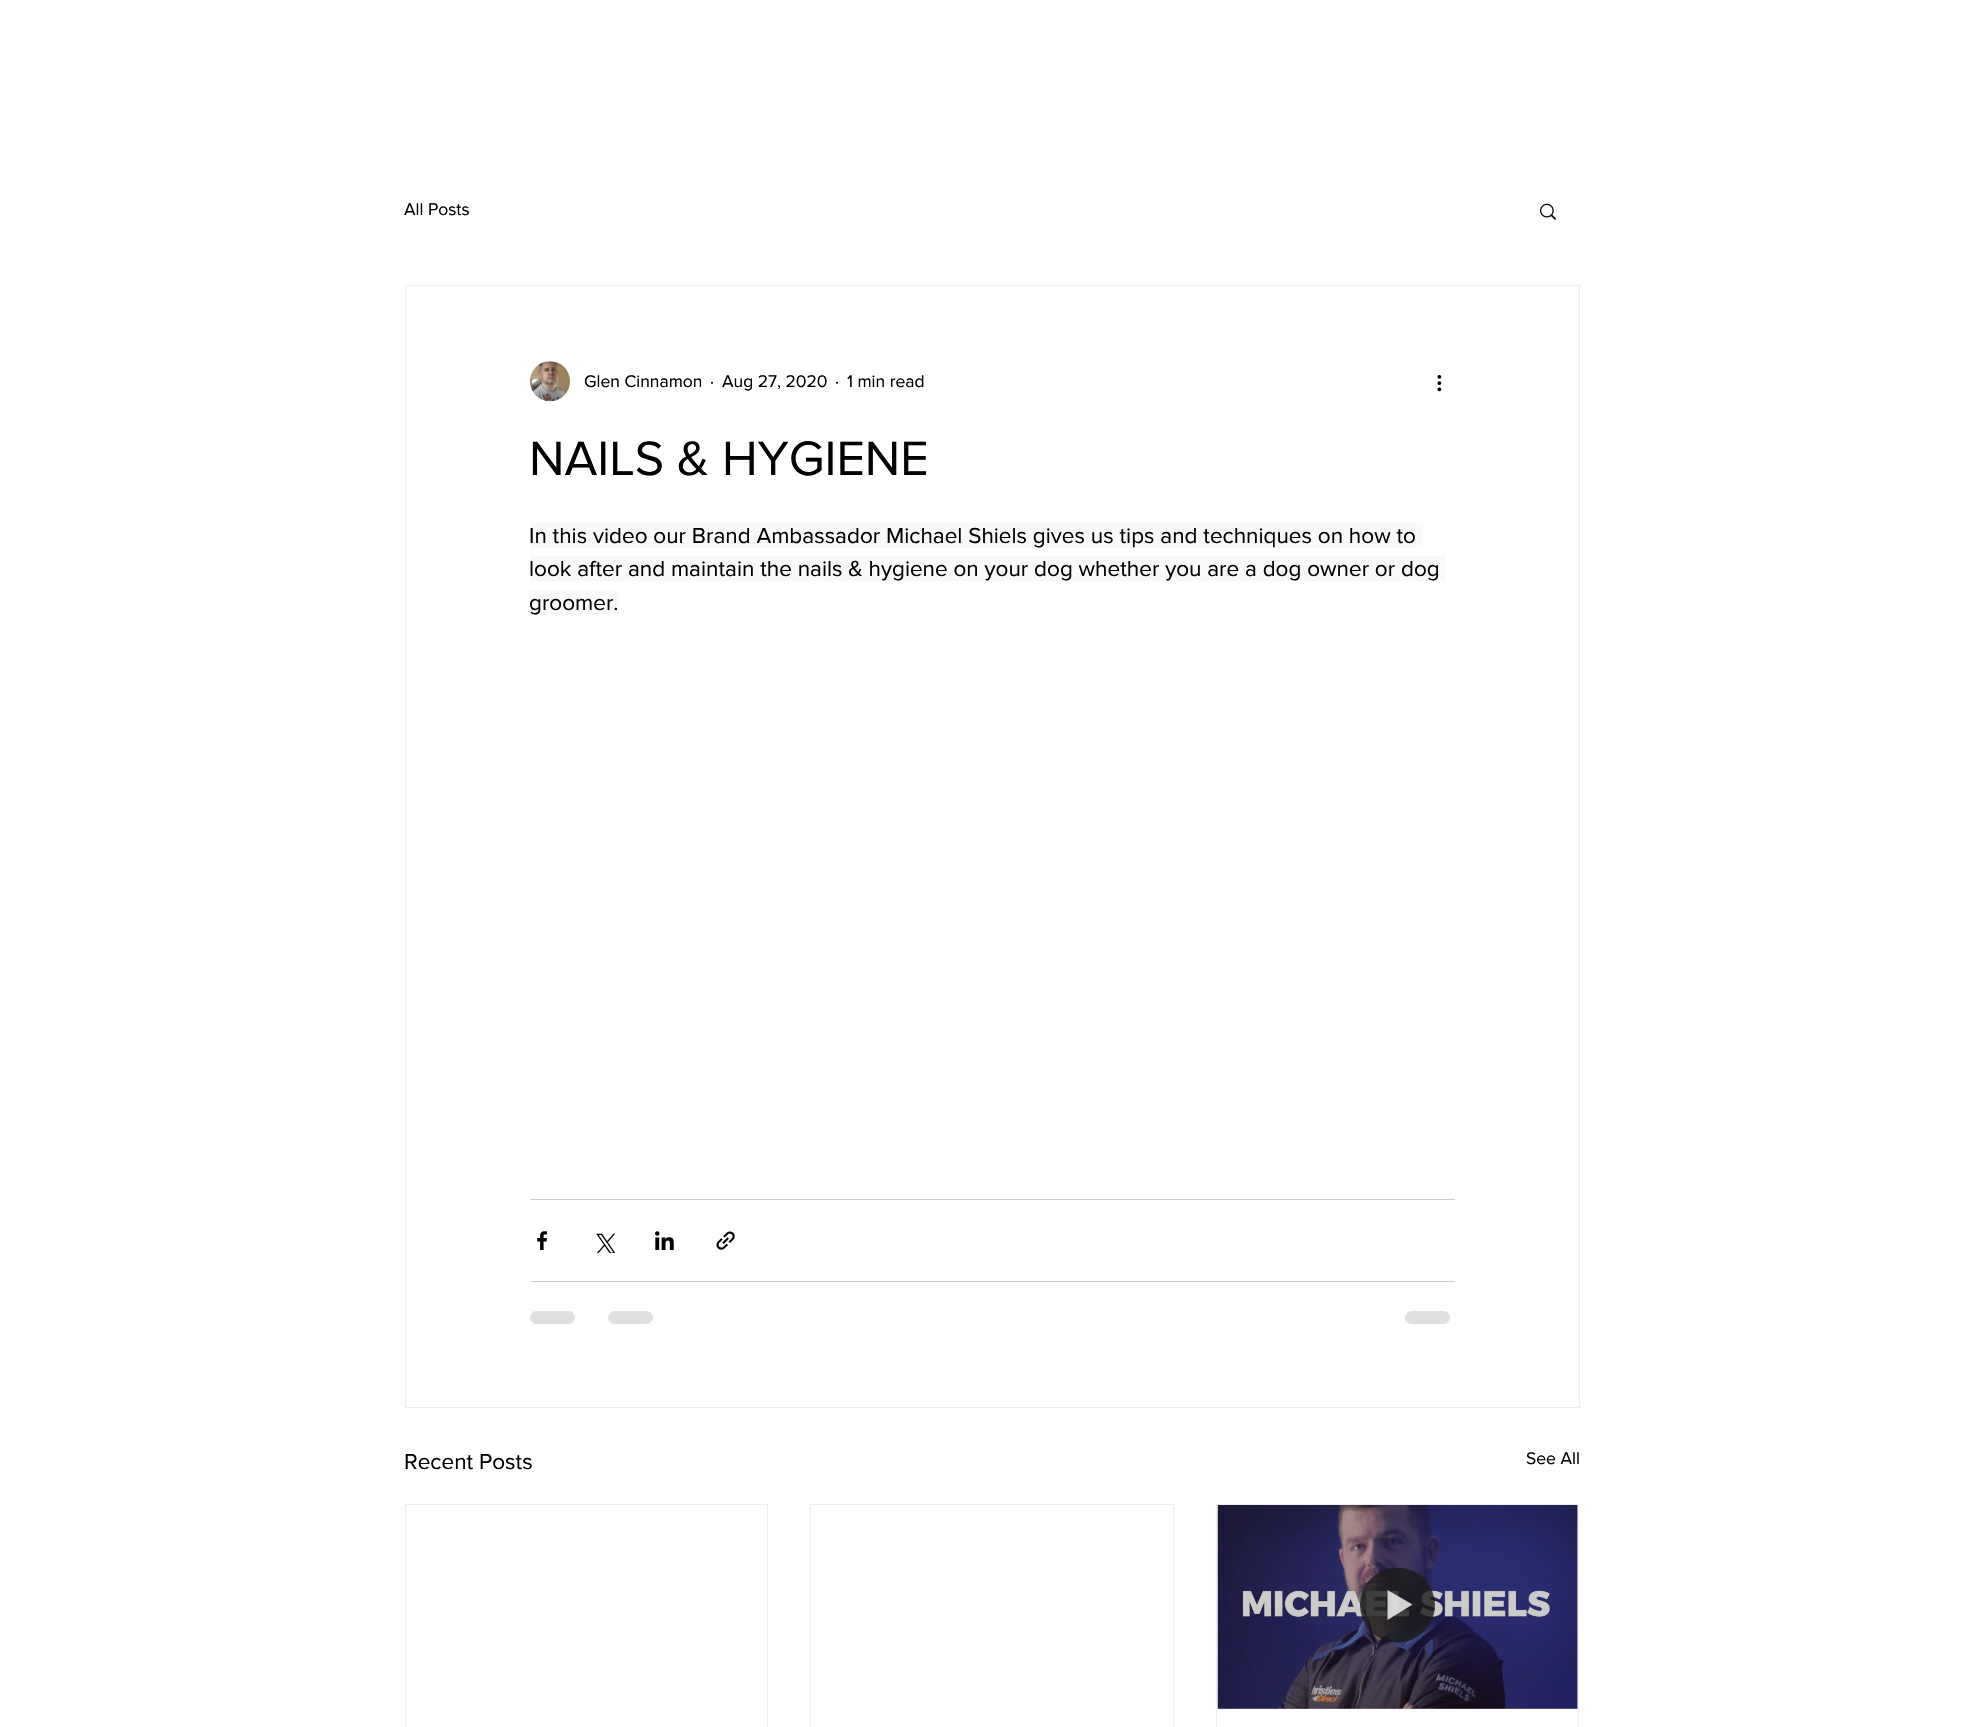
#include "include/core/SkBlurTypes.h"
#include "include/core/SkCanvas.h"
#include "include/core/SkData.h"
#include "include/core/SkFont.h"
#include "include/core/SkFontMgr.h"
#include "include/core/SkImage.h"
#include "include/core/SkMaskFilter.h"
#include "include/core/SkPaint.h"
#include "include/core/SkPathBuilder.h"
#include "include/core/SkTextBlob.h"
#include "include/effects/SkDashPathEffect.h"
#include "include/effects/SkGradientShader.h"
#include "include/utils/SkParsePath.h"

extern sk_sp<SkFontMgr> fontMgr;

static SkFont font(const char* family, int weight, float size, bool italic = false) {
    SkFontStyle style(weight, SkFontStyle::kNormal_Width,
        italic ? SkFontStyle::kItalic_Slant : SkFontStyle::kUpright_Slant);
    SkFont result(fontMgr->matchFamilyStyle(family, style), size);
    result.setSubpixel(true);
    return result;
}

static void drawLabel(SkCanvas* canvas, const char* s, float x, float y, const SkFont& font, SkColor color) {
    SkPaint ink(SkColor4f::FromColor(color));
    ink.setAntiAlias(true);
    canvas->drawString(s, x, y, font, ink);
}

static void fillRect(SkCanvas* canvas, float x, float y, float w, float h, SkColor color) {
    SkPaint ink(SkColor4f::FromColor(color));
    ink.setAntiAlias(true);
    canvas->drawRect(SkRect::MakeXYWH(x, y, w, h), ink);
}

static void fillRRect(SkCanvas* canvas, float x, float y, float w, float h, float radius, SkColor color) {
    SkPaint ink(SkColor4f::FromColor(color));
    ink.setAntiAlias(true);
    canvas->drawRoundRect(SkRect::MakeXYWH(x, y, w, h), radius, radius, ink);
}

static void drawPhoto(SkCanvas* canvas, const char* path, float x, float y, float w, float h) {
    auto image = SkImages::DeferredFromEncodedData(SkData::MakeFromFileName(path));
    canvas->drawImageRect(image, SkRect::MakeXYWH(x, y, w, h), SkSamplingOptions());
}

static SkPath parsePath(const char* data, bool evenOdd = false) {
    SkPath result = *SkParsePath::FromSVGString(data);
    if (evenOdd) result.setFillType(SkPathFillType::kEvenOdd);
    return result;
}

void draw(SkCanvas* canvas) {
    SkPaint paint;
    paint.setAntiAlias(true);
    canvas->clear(0xFFFFFFFF);
    fillRect(canvas, 1218, 1505, 360, 204, 0xFFCCCCCC);
    SkFont font1 = font("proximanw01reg", 400, 17.5f);
    drawLabel(canvas, "All Posts", 404, 215, font1, 0xFF000000);
    drawPhoto(canvas, "assets/img1.png", 1540, 203, 17, 17);
    paint.setStroke(true);
    paint.setStrokeWidth(1);
    paint.setColor(0xFFEEECEC);
    canvas->drawRect(SkRect::MakeXYWH(405.5f, 285.5f, 1174, 1122), paint);
    drawPhoto(canvas, "assets/img2.png", 530, 361, 40, 41);
    drawLabel(canvas, "Glen Cinnamon", 584, 387, font1, 0xFF000000);
    drawLabel(canvas, "·", 710, 387, font1, 0xFF000000);
    drawLabel(canvas, "Aug 27, 2020", 722, 387, font1, 0xFF000000);
    drawLabel(canvas, "·", 835, 387, font1, 0xFF000000);
    drawLabel(canvas, "1 min read", 847, 387, font1, 0xFF000000);
    drawPhoto(canvas, "assets/img3.png", 1437, 375, 5, 17);
    SkFont font2 = font("proximanw01reg", 400, 50);
    drawLabel(canvas, "NAILS & HYGIENE", 529, 475, font2, 0xFF000000);
    fillRect(canvas, 530, 523, 893, 25, 0xFFF9F9F9);
    SkFont font3 = font("proximanw01reg", 400, 22.5f);
    drawLabel(canvas, "In this video our Brand Ambassador Michael Shiels gives us tips and techniques on how to", 529, 543, font3, 0xFF000000);
    fillRect(canvas, 530, 556, 916, 25, 0xFFF9F9F9);
    drawLabel(canvas, "look after and maintain the nails & hygiene on your dog whether you are a dog owner or dog", 529, 576, font3, 0xFF000000);
    fillRect(canvas, 530, 590, 89, 25, 0xFFF9F9F9);
    drawLabel(canvas, "groomer.", 529, 610, font3, 0xFF000000);
    fillRect(canvas, 530, 1199, 925, 1, 0xFFCCCCCC);
    drawPhoto(canvas, "assets/img4.png", 537, 1231, 10, 19);
    drawPhoto(canvas, "assets/img5.png", 596, 1233, 19, 20);
    drawPhoto(canvas, "assets/img6.png", 655, 1231, 19, 19);
    drawPhoto(canvas, "assets/img7.png", 716, 1231, 19, 19);
    fillRect(canvas, 530, 1281, 925, 1, 0xFFCCCCCC);
    fillRRect(canvas, 530, 1311, 45, 13, 6.5f, 0xFFE0E0E0);
    fillRRect(canvas, 608, 1311, 45, 13, 6.5f, 0xFFE0E0E0);
    fillRRect(canvas, 1405, 1311, 45, 13, 6.5f, 0xFFE0E0E0);
    drawLabel(canvas, "Recent Posts", 404, 1469, font3, 0xFF000000);
    drawLabel(canvas, "See All", 1526, 1464, font1, 0xFF000000);
    canvas->drawRect(SkRect::MakeXYWH(405.5f, 1504.5f, 362, 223), paint);
    canvas->drawRect(SkRect::MakeXYWH(810.5f, 1504.5f, 363, 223), paint);
    canvas->drawRect(SkRect::MakeXYWH(1216.5f, 1504.5f, 362, 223), paint);
    drawPhoto(canvas, "assets/img8.png", 1217, 1505, 361, 204);
    canvas->save();
    canvas->clipRect(SkRect::MakeXYWH(1360, 1568, 75, 75));
    paint.setStroke(false);
    paint.setColor(0xCC1A1A1A);
    canvas->drawCircle(1397.5f, 1605, 37.5f, paint);
    canvas->restore();
    paint.setColor(0xCCFFFFFF);
    canvas->drawPath(parsePath("M1387.5 1590V1620L1412.5 1604.5Z"), paint);
}
